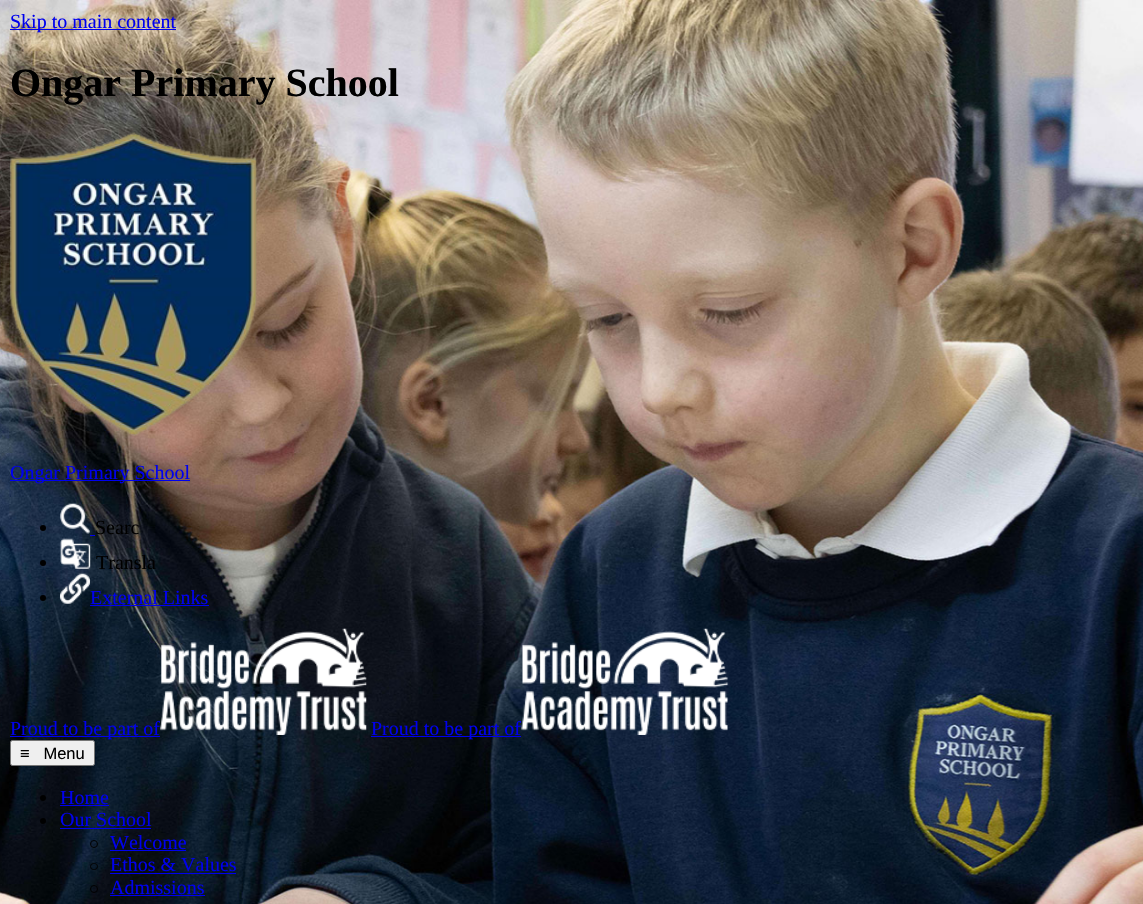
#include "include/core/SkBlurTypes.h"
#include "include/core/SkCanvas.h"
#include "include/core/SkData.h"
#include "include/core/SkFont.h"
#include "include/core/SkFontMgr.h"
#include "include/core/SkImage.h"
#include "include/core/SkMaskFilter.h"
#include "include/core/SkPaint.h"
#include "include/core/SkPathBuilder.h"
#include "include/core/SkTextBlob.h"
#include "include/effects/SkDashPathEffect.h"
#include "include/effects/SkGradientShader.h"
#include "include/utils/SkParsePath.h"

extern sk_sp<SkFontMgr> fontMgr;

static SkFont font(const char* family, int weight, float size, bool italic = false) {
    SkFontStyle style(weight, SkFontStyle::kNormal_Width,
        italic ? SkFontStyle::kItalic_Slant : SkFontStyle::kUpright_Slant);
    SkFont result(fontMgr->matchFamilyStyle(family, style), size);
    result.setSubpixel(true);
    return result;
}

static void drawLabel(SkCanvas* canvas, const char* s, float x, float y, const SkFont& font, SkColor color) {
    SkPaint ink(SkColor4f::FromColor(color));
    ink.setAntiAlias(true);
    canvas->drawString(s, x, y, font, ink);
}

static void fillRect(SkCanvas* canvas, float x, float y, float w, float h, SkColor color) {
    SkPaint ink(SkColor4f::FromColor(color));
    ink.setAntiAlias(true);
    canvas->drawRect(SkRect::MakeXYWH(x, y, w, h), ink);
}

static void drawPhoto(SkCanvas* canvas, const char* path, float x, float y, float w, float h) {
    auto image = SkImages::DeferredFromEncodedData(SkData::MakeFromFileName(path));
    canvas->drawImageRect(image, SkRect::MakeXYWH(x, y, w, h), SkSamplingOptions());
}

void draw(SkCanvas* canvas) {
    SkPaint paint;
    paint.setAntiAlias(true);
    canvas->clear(0xFFFFFFFF);
    drawPhoto(canvas, "assets/img1.png", 0, 0, 1143, 904);
    fillRect(canvas, 10, 29, 166, 1, 0xFF0000EE);
    SkFont font1 = font("Liberation Serif", 400, 20);
    drawLabel(canvas, "Skip to main content", 10, 28, font1, 0xFF0000EE);
    SkFont font2 = font("Liberation Serif", 700, 40);
    drawLabel(canvas, "Ongar Primary School", 10, 96, font2, 0xFF000000);
    drawPhoto(canvas, "assets/img2.png", 10, 132, 247, 304);
    fillRect(canvas, 10, 480, 180, 1, 0xFF0000EE);
    drawLabel(canvas, "Ongar Primary School", 10, 479, font1, 0xFF0000EE);
    paint.setColor(0xFF000000);
    canvas->drawCircle(43, 528, 3, paint);
    drawPhoto(canvas, "assets/img3.png", 60, 503, 30, 31);
    drawLabel(canvas, "Searc", 95, 534, font1, 0xFF000000);
    fillRect(canvas, 90, 535, 5, 1, 0xFF0000EE);
    canvas->drawCircle(43, 563, 3, paint);
    drawPhoto(canvas, "assets/img4.png", 60, 538, 31, 31);
    drawLabel(canvas, "Transla", 96, 569, font1, 0xFF000000);
    canvas->drawCircle(43, 598, 3, paint);
    drawPhoto(canvas, "assets/img5.png", 60, 573, 30, 31);
    drawLabel(canvas, "External Links", 90, 604, font1, 0xFF0000EE);
    fillRect(canvas, 90, 605, 119, 1, 0xFF0000EE);
    fillRect(canvas, 10, 736, 150, 1, 0xFF0000EE);
    drawLabel(canvas, "Proud to be part of", 10, 735, font1, 0xFF0000EE);
    drawPhoto(canvas, "assets/img6.png", 160, 628, 207, 107);
    fillRect(canvas, 371, 736, 150, 1, 0xFF0000EE);
    drawLabel(canvas, "Proud to be part of", 371, 735, font1, 0xFF0000EE);
    drawPhoto(canvas, "assets/img7.png", 521, 628, 207, 107);
    paint.setColor(0xFFEFEFEF);
    canvas->drawRoundRect(SkRect::MakeXYWH(10.5f, 740.5f, 84, 25), 2, 2, paint);
    paint.setStroke(true);
    paint.setStrokeWidth(1);
    paint.setColor(0xFF767676);
    canvas->drawRoundRect(SkRect::MakeXYWH(10.5f, 740.5f, 84, 25), 2, 2, paint);
    SkFont font3 = font("Liberation Sans", 400, 16.5f);
    drawLabel(canvas, "≡   Menu", 20, 759, font3, 0xFF000000);
    paint.setStroke(false);
    paint.setColor(0xFF000000);
    canvas->drawCircle(43, 798, 3, paint);
    drawLabel(canvas, "Home", 60, 804, font1, 0xFF0000EE);
    fillRect(canvas, 60, 805, 49, 1, 0xFF0000EE);
    canvas->drawCircle(43, 821, 3, paint);
    drawLabel(canvas, "Our School", 60, 826, font1, 0xFF0000EE);
    fillRect(canvas, 60, 828, 91, 1, 0xFF0000EE);
    paint.setStroke(true);
    canvas->drawCircle(94, 844, 3.5f, paint);
    drawLabel(canvas, "Welcome", 110, 849, font1, 0xFF0000EE);
    fillRect(canvas, 110, 850, 76, 1, 0xFF0000EE);
    canvas->drawRoundRect(SkRect::MakeXYWH(90.5f, 863.5f, 7, 6), 3, 3, paint);
    drawLabel(canvas, "Ethos & Values", 110, 871, font1, 0xFF0000EE);
    fillRect(canvas, 110, 873, 126, 1, 0xFF0000EE);
    canvas->drawCircle(94, 889, 3.5f, paint);
    drawLabel(canvas, "Admissions", 110, 894, font1, 0xFF0000EE);
    fillRect(canvas, 110, 895, 95, 1, 0xFF0000EE);
}
